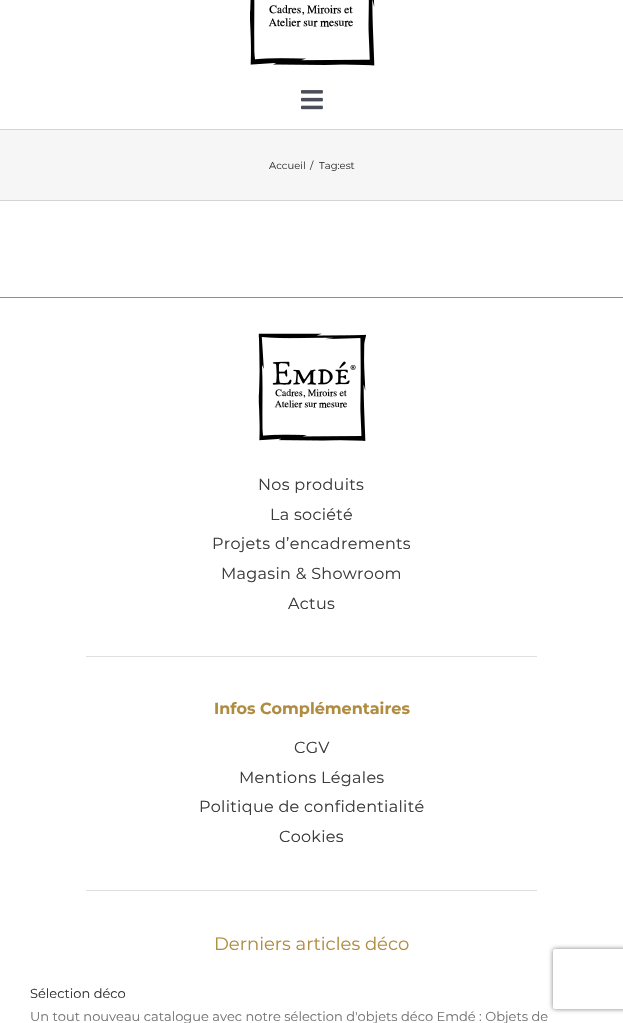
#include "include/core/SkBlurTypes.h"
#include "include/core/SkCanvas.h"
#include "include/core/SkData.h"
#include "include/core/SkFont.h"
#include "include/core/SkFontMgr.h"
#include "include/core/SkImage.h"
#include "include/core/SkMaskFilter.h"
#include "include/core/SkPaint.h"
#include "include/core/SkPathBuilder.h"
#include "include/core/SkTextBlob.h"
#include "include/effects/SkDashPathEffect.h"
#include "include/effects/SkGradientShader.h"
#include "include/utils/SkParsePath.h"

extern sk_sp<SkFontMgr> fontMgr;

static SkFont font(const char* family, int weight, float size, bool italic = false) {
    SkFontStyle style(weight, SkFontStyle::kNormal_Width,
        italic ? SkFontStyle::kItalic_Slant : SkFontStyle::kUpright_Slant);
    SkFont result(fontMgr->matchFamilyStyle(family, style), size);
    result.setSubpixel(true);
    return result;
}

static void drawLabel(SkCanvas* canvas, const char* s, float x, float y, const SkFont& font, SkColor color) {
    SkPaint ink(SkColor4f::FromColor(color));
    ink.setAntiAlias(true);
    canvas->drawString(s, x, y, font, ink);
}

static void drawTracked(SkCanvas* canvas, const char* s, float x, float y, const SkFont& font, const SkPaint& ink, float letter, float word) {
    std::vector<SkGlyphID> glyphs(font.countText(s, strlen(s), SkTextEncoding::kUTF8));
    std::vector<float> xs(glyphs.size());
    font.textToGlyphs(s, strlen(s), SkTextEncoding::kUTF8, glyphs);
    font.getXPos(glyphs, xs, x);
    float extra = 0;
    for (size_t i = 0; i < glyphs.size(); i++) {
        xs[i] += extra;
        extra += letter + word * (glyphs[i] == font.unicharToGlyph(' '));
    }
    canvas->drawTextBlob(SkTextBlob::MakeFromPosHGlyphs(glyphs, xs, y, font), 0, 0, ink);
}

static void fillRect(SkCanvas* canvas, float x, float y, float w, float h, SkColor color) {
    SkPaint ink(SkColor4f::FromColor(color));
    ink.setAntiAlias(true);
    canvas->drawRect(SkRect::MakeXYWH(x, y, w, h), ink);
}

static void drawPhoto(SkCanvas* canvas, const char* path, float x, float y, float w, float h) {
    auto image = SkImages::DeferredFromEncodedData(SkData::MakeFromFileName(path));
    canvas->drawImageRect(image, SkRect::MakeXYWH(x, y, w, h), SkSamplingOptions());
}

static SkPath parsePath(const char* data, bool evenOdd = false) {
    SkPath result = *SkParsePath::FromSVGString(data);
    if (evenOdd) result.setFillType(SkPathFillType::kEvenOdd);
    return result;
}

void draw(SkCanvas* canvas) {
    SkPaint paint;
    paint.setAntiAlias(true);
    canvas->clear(0xFFFFFFFF);
    drawPhoto(canvas, "assets/img1.png", 250, 0, 125, 66);
    drawPhoto(canvas, "assets/img2.png", 301, 90, 22, 20);
    fillRect(canvas, 0, 130, 623, 70, 0xFFF6F6F6);
    fillRect(canvas, 0, 129, 623, 1, 0xFFD2D3D4);
    fillRect(canvas, 0, 200, 623, 1, 0xFFD2D3D4);
    SkFont font1 = font("Montserrat", 400, 10);
    drawLabel(canvas, "Accueil", 269, 169, font1, 0xFF333333);
    drawLabel(canvas, "/", 310, 169, font1, 0xFF333333);
    drawLabel(canvas, "Tag:est", 319, 169, font1, 0xFF333333);
    fillRect(canvas, 0, 297, 623, 1, 0xFFAF8C3F);
    drawPhoto(canvas, "assets/img3.png", 258, 333, 108, 108);
    SkFont font2 = font("Montserrat", 400, 16);
    paint.setColor(0xFF3D3C3C);
    drawTracked(canvas, "Nos produits", 258, 490, font2, paint, 0.3f, 0);
    drawTracked(canvas, "La société", 270, 520, font2, paint, 0.3f, 0);
    drawTracked(canvas, "Projets d’encadrements", 212, 549, font2, paint, 0.3f, 0);
    drawTracked(canvas, "Magasin & Showroom", 221, 579, font2, paint, 0.3f, 0);
    drawTracked(canvas, "Actus", 288, 609, font2, paint, 0.3f, 0);
    fillRect(canvas, 86, 656, 451, 1, 0xFFE0DEDE);
    SkFont font3 = font("Montserrat", 700, 16);
    drawLabel(canvas, "Infos Complémentaires", 214, 714, font3, 0xFFAF8C3F);
    drawTracked(canvas, "CGV", 294, 753, font2, paint, 0.3f, 0);
    drawTracked(canvas, "Mentions Légales", 239, 783, font2, paint, 0.3f, 0);
    drawTracked(canvas, "Politique de confidentialité", 199, 812, font2, paint, 0.3f, 0);
    drawTracked(canvas, "Cookies", 279, 842, font2, paint, 0.3f, 0);
    fillRect(canvas, 86, 890, 451, 1, 0xFFE0DEDE);
    SkFont font4 = font("Montserrat", 400, 18);
    drawLabel(canvas, "Derniers articles déco", 214, 950, font4, 0xFFAF8C3F);
    SkFont font5 = font("Montserrat", 400, 13);
    drawLabel(canvas, "Sélection déco", 30, 998, font5, 0xFF333333);
    canvas->save();
    canvas->clipPath(parsePath("M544 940H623V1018H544ZM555 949H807C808 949 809 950 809 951V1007C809 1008 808 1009 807 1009H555C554 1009 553 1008 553 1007V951C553 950 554 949 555 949Z", true), true);
    paint.setColor(0xFF808080);
    paint.setMaskFilter(SkMaskFilter::MakeBlur(kNormal_SkBlurStyle, 2.5f));
    canvas->drawRoundRect(SkRect::MakeXYWH(553, 949, 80, 60), 2, 2, paint);
    paint.setMaskFilter(nullptr);
    canvas->restore();
    drawLabel(canvas, "Un tout nouveau catalogue avec notre sélection d'objets déco Emdé : Objets de", 30, 1021, font5, 0xFF747474);
}
